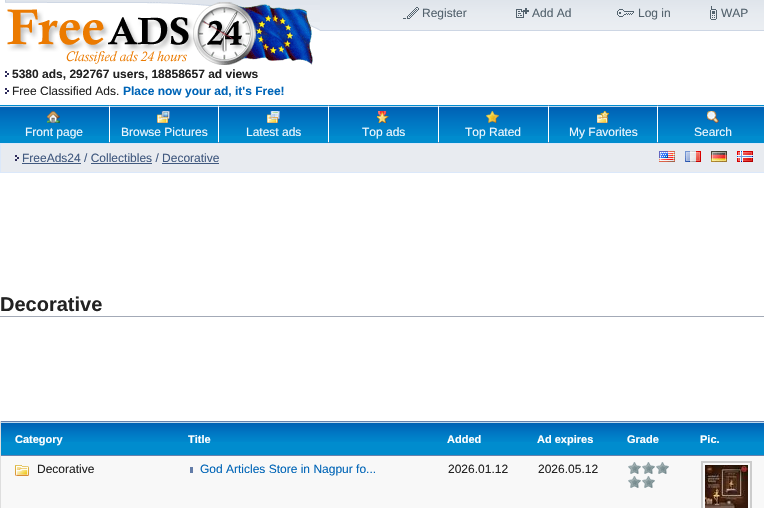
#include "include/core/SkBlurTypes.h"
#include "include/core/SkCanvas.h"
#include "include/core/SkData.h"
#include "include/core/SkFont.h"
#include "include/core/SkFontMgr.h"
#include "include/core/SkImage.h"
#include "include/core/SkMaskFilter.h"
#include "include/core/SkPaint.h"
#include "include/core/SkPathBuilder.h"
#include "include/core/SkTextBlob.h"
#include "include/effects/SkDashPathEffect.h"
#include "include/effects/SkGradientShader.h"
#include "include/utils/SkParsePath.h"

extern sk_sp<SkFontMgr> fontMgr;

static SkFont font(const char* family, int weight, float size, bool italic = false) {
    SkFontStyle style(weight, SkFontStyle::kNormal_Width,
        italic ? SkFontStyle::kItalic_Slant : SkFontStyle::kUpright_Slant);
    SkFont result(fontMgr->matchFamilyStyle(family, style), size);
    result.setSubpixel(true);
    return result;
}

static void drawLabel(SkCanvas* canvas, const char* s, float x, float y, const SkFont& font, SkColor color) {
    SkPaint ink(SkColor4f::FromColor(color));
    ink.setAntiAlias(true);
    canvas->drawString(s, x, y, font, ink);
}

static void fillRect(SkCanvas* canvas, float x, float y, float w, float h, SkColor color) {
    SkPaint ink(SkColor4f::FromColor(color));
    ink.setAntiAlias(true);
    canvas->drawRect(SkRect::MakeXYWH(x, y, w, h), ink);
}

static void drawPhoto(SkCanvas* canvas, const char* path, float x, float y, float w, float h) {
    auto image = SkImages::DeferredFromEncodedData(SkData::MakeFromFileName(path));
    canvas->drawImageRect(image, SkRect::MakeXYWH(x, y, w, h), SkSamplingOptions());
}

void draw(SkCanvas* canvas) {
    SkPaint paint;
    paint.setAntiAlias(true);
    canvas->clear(0xFFFFFFFF);
    drawPhoto(canvas, "assets/img1.png", 320, 0, 444, 31);
    drawPhoto(canvas, "assets/img2.png", 403, 7, 16, 12);
    SkFont font1 = font("Liberation Sans", 400, 12);
    drawLabel(canvas, "Register", 422, 17, font1, 0xFF53626D);
    drawPhoto(canvas, "assets/img3.png", 516, 8, 13, 10);
    drawLabel(canvas, "Add Ad", 532, 17, font1, 0xFF53626D);
    drawPhoto(canvas, "assets/img4.png", 617, 9, 17, 8);
    drawLabel(canvas, "Log in", 638, 17, font1, 0xFF53626D);
    drawPhoto(canvas, "assets/img5.png", 710, 6, 7, 14);
    drawLabel(canvas, "WAP", 721, 17, font1, 0xFF53626D);
    drawPhoto(canvas, "assets/img6.png", 5, 0, 315, 65);
    drawPhoto(canvas, "assets/img7.png", 5, 71, 4, 6);
    SkFont font2 = font("Liberation Sans", 700, 12);
    drawLabel(canvas, "5380 ads, 292767 users, 18858657 ad views", 12, 78, font2, 0xFF222222);
    drawPhoto(canvas, "assets/img7.png", 5, 88, 4, 6);
    drawLabel(canvas, "Free Classified Ads.", 12, 95, font1, 0xFF222222);
    drawLabel(canvas, "Place now your ad, it's Free!", 123, 95, font2, 0xFF0065B7);
    paint.setStroke(true);
    paint.setStrokeWidth(1);
    paint.setColor(0xFF6882AD);
    canvas->drawRect(SkRect::MakeXYWH(0.5f, 105.5f, 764, 37), paint);
    fillRect(canvas, 0, 105, 109, 38, 0xFF008CCE);
    drawPhoto(canvas, "assets/img8.png", 0, 106, 109, 30);
    drawPhoto(canvas, "assets/img9.png", 47, 111, 13, 12);
    drawLabel(canvas, "Front page", 25, 136, font1, 0xFFEDF7FD);
    fillRect(canvas, 110, 105, 108, 38, 0xFF008CCE);
    drawPhoto(canvas, "assets/img10.png", 110, 106, 108, 30);
    drawPhoto(canvas, "assets/img11.png", 157, 111, 13, 12);
    drawLabel(canvas, "Browse Pictures", 121, 136, font1, 0xFFEDF7FD);
    fillRect(canvas, 219, 105, 109, 38, 0xFF008CCE);
    drawPhoto(canvas, "assets/img8.png", 219, 106, 109, 30);
    drawPhoto(canvas, "assets/img12.png", 267, 111, 13, 12);
    drawLabel(canvas, "Latest ads", 246, 136, font1, 0xFFEDF7FD);
    fillRect(canvas, 329, 105, 109, 38, 0xFF008CCE);
    drawPhoto(canvas, "assets/img8.png", 329, 106, 109, 30);
    drawPhoto(canvas, "assets/img13.png", 377, 111, 12, 12);
    drawLabel(canvas, "Top ads", 362, 136, font1, 0xFFEDF7FD);
    fillRect(canvas, 439, 105, 109, 38, 0xFF008CCE);
    drawPhoto(canvas, "assets/img8.png", 439, 106, 109, 30);
    drawPhoto(canvas, "assets/img14.png", 486, 111, 13, 12);
    drawLabel(canvas, "Top Rated", 465, 136, font1, 0xFFEDF7FD);
    fillRect(canvas, 549, 105, 108, 38, 0xFF008CCE);
    drawPhoto(canvas, "assets/img10.png", 549, 106, 108, 30);
    drawPhoto(canvas, "assets/img15.png", 597, 111, 12, 12);
    drawLabel(canvas, "My Favorites", 569, 136, font1, 0xFFEDF7FD);
    fillRect(canvas, 658, 105, 106, 38, 0xFF008CCE);
    drawPhoto(canvas, "assets/img16.png", 658, 106, 106, 30);
    drawPhoto(canvas, "assets/img17.png", 707, 111, 12, 12);
    drawLabel(canvas, "Search", 694, 136, font1, 0xFFEDF7FD);
    paint.setStroke(false);
    paint.setColor(0xFFE8EBF0);
    canvas->drawRect(SkRect::MakeXYWH(0.5f, 143.5f, 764, 29), paint);
    paint.setStroke(true);
    paint.setColor(0xFFDBE8FA);
    canvas->drawRect(SkRect::MakeXYWH(0.5f, 143.5f, 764, 29), paint);
    drawPhoto(canvas, "assets/img18.png", 15, 155, 4, 6);
    drawLabel(canvas, "FreeAds24 / Collectibles / Decorative", 22, 162, font1, 0xFF41597F);
    fillRect(canvas, 22, 163, 59, 1, 0xFF41597F);
    fillRect(canvas, 91, 163, 61, 1, 0xFF41597F);
    fillRect(canvas, 162, 163, 57, 1, 0xFF41597F);
    drawPhoto(canvas, "assets/img19.png", 659, 151, 16, 11);
    drawPhoto(canvas, "assets/img20.png", 685, 151, 16, 11);
    drawPhoto(canvas, "assets/img21.png", 711, 151, 16, 11);
    drawPhoto(canvas, "assets/img22.png", 737, 151, 16, 11);
    fillRect(canvas, 0, 316, 764, 1, 0xFFA3AAB7);
    SkFont font3 = font("Liberation Sans", 700, 20);
    drawLabel(canvas, "Decorative", 0, 311, font3, 0xFF222222);
    fillRect(canvas, 1, 456, 763, 52, 0xFFF8F8F8);
    fillRect(canvas, 0, 421, 1, 87, 0xFFDEDEDE);
    fillRect(canvas, 1, 442, 763, 13, 0xFF008CCE);
    drawPhoto(canvas, "assets/img23.png", 1, 422, 173, 20);
    fillRect(canvas, 1, 421, 763, 1, 0xFF6882AD);
    fillRect(canvas, 1, 455, 763, 1, 0xFF6882AD);
    SkFont font4 = font("Liberation Sans", 700, 11);
    drawLabel(canvas, "Category", 15, 443, font4, 0xFFFFFFFF);
    drawPhoto(canvas, "assets/img24.png", 174, 422, 259, 20);
    drawLabel(canvas, "Title", 188, 443, font4, 0xFFFFFFFF);
    drawPhoto(canvas, "assets/img25.png", 433, 422, 90, 20);
    drawLabel(canvas, "Added", 447, 443, font4, 0xFFFFFFFF);
    drawPhoto(canvas, "assets/img25.png", 523, 422, 90, 20);
    drawLabel(canvas, "Ad expires", 537, 443, font4, 0xFFFFFFFF);
    drawPhoto(canvas, "assets/img26.png", 613, 422, 73, 20);
    drawLabel(canvas, "Grade", 627, 443, font4, 0xFFFFFFFF);
    drawPhoto(canvas, "assets/img27.png", 686, 422, 78, 20);
    drawLabel(canvas, "Pic.", 700, 443, font4, 0xFFFFFFFF);
    drawPhoto(canvas, "assets/img28.png", 15, 465, 14, 11);
    drawLabel(canvas, "Decorative", 37, 473, font1, 0xFF222222);
    fillRect(canvas, 190, 467, 3, 6, 0xFF627CA8);
    drawLabel(canvas, "God Articles Store in Nagpur fo...", 200, 473, font1, 0xFF0065B7);
    drawLabel(canvas, "2026.01.12", 448, 473, font1, 0xFF222222);
    drawLabel(canvas, "2026.05.12", 538, 473, font1, 0xFF222222);
    drawPhoto(canvas, "assets/img29.png", 628, 462, 13, 12);
    drawPhoto(canvas, "assets/img29.png", 642, 462, 13, 12);
    drawPhoto(canvas, "assets/img29.png", 656, 462, 13, 12);
    drawPhoto(canvas, "assets/img29.png", 628, 476, 13, 12);
    drawPhoto(canvas, "assets/img29.png", 642, 476, 13, 12);
    paint.setStrokeWidth(2);
    paint.setColor(0xFFCCCCCC);
    canvas->drawRect(SkRect::MakeXYWH(702, 462, 49, 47), paint);
    drawPhoto(canvas, "assets/img30.png", 705, 465, 43, 43);
}
